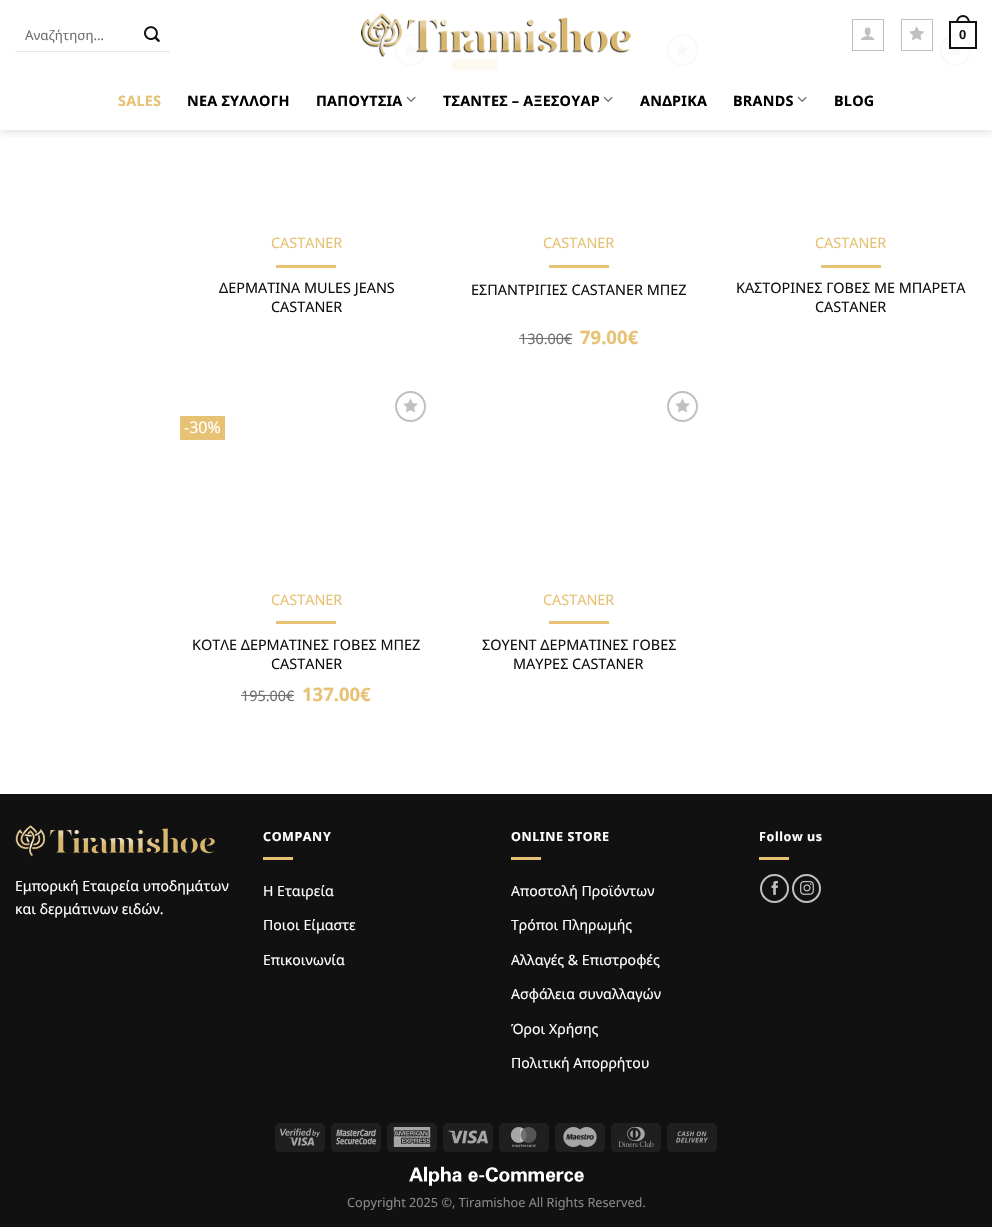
#include "include/core/SkBlurTypes.h"
#include "include/core/SkCanvas.h"
#include "include/core/SkData.h"
#include "include/core/SkFont.h"
#include "include/core/SkFontMgr.h"
#include "include/core/SkImage.h"
#include "include/core/SkMaskFilter.h"
#include "include/core/SkPaint.h"
#include "include/core/SkPathBuilder.h"
#include "include/core/SkTextBlob.h"
#include "include/effects/SkDashPathEffect.h"
#include "include/effects/SkGradientShader.h"
#include "include/utils/SkParsePath.h"

extern sk_sp<SkFontMgr> fontMgr;

static SkFont font(const char* family, int weight, float size, bool italic = false) {
    SkFontStyle style(weight, SkFontStyle::kNormal_Width,
        italic ? SkFontStyle::kItalic_Slant : SkFontStyle::kUpright_Slant);
    SkFont result(fontMgr->matchFamilyStyle(family, style), size);
    result.setSubpixel(true);
    return result;
}

static void drawLabel(SkCanvas* canvas, const char* s, float x, float y, const SkFont& font, SkColor color) {
    SkPaint ink(SkColor4f::FromColor(color));
    ink.setAntiAlias(true);
    canvas->drawString(s, x, y, font, ink);
}

static void drawTracked(SkCanvas* canvas, const char* s, float x, float y, const SkFont& font, const SkPaint& ink, float letter, float word) {
    std::vector<SkGlyphID> glyphs(font.countText(s, strlen(s), SkTextEncoding::kUTF8));
    std::vector<float> xs(glyphs.size());
    font.textToGlyphs(s, strlen(s), SkTextEncoding::kUTF8, glyphs);
    font.getXPos(glyphs, xs, x);
    float extra = 0;
    for (size_t i = 0; i < glyphs.size(); i++) {
        xs[i] += extra;
        extra += letter + word * (glyphs[i] == font.unicharToGlyph(' '));
    }
    canvas->drawTextBlob(SkTextBlob::MakeFromPosHGlyphs(glyphs, xs, y, font), 0, 0, ink);
}

static void fillRect(SkCanvas* canvas, float x, float y, float w, float h, SkColor color) {
    SkPaint ink(SkColor4f::FromColor(color));
    ink.setAntiAlias(true);
    canvas->drawRect(SkRect::MakeXYWH(x, y, w, h), ink);
}

static void fillRRect(SkCanvas* canvas, float x, float y, float w, float h, float radius, SkColor color) {
    SkPaint ink(SkColor4f::FromColor(color));
    ink.setAntiAlias(true);
    canvas->drawRoundRect(SkRect::MakeXYWH(x, y, w, h), radius, radius, ink);
}

static void drawPhoto(SkCanvas* canvas, const char* path, float x, float y, float w, float h) {
    auto image = SkImages::DeferredFromEncodedData(SkData::MakeFromFileName(path));
    canvas->drawImageRect(image, SkRect::MakeXYWH(x, y, w, h), SkSamplingOptions());
}

static SkPath parsePath(const char* data, bool evenOdd = false) {
    SkPath result = *SkParsePath::FromSVGString(data);
    if (evenOdd) result.setFillType(SkPathFillType::kEvenOdd);
    return result;
}

void draw(SkCanvas* canvas) {
    SkPaint paint;
    paint.setAntiAlias(true);
    canvas->clear(0xFFFFFFFF);
    paint.setStroke(true);
    paint.setStrokeWidth(2);
    paint.setColor(0xFFF9F9F9);
    canvas->drawRoundRect(SkRect::MakeXYWH(396, 35, 29, 30), 14.5f, 14.5f, paint);
    drawPhoto(canvas, "assets/img6.png", 403, 42, 15, 15);
    fillRect(canvas, 452, 59, 45, 11, 0xFFFDF9F1);
    canvas->drawRoundRect(SkRect::MakeXYWH(668, 35, 29, 30), 14.5f, 14.5f, paint);
    drawPhoto(canvas, "assets/img6.png", 675, 42, 15, 15);
    canvas->drawRoundRect(SkRect::MakeXYWH(941, 35, 29, 30), 14.5f, 14.5f, paint);
    drawPhoto(canvas, "assets/img7.png", 948, 42, 14, 15);
    canvas->save();
    canvas->clipRect(SkRect::MakeXYWH(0, 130, 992, 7));
    paint.setStroke(false);
    paint.setColor(0x26000000);
    paint.setMaskFilter(SkMaskFilter::MakeBlur(kNormal_SkBlurStyle, 5));
    canvas->drawRect(SkRect::MakeXYWH(1, 1, 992, 130), paint);
    paint.setMaskFilter(nullptr);
    canvas->restore();
    fillRect(canvas, 15, 51, 155, 1, 0xFFE8E8E8);
    SkFont font1 = font("Noto Sans", 400, 13.25f);
    drawLabel(canvas, "Αναζήτηση…", 25, 40, font1, 0xFF707070);
    drawPhoto(canvas, "assets/img1.png", 144, 26, 16, 16);
    drawPhoto(canvas, "assets/img2.png", 361, 13, 270, 44);
    paint.setStroke(true);
    paint.setStrokeWidth(1);
    paint.setColor(0xFFC0C0C0);
    canvas->drawRect(SkRect::MakeXYWH(852.5f, 19.5f, 31, 31), paint);
    drawPhoto(canvas, "assets/img3.png", 861, 27, 14, 13);
    canvas->drawRect(SkRect::MakeXYWH(901.5f, 19.5f, 31, 31), paint);
    drawPhoto(canvas, "assets/img4.png", 909, 26, 16, 15);
    paint.setStrokeWidth(2);
    paint.setColor(0xFF111111);
    canvas->drawRect(SkRect::MakeXYWH(950, 22, 26, 26), paint);
    paint.setStroke(false);
    canvas->drawPath(parsePath("M963 15C967.5 15 970 19 970 23H956C956 19 958.5 15 963 15ZM963 17C966.5 17 968 20 968 23H958C958 20 959.5 17 963 17Z", true), paint);
    SkFont font2 = font("Liberation Sans", 700, 13);
    drawLabel(canvas, "0", 959, 39, font2, 0xFF111111);
    SkFont font3 = font("Noto Sans", 700, 14.4f);
    paint.setColor(0xFFE7C274);
    drawTracked(canvas, "SALES", 118, 106, font3, paint, 0.25f, 0);
    paint.setColor(0xFF000000);
    drawTracked(canvas, "ΝΕΑ ΣΥΛΛΟΓΗ", 187, 106, font3, paint, 0.25f, 0);
    drawTracked(canvas, "ΠΑΠΟΥΤΣΙΑ", 316, 106, font3, paint, 0.25f, 0);
    drawPhoto(canvas, "assets/img5.png", 406, 96, 10, 6);
    drawTracked(canvas, "ΤΣΑΝΤΕΣ – ΑΞΕΣΟΥΑΡ", 443, 106, font3, paint, 0.25f, 0);
    drawPhoto(canvas, "assets/img5.png", 603, 96, 10, 6);
    drawTracked(canvas, "ΑΝΔΡΙΚΑ", 640, 106, font3, paint, 0.25f, 0);
    drawTracked(canvas, "BRANDS", 733, 106, font3, paint, 0.25f, 0);
    drawPhoto(canvas, "assets/img5.png", 797, 96, 10, 6);
    drawTracked(canvas, "BLOG", 834, 106, font3, paint, 0.25f, 0);
    SkFont font4 = font("Noto Sans", 400, 14.4f);
    drawLabel(canvas, "CASTANER", 271, 248, font4, 0xFFE7C274);
    fillRect(canvas, 276, 265, 60, 3, 0xFFE7C274);
    drawLabel(canvas, "ΔΕΡΜΑΤΙΝΑ MULES JEANS", 219, 293, font4, 0xFF111111);
    drawLabel(canvas, "CASTANER", 271, 312, font4, 0xFF111111);
    drawLabel(canvas, "CASTANER", 543, 248, font4, 0xFFE7C274);
    fillRect(canvas, 549, 265, 60, 3, 0xFFE7C274);
    drawLabel(canvas, "ΕΣΠΑΝΤΡΙΓΙΕΣ CASTANER ΜΠΕΖ", 471, 295, font4, 0xFF111111);
    drawLabel(canvas, "130.00", 519, 344, font4, 0xFF707070);
    fillRect(canvas, 519, 338, 45, 1, 0xFF707070);
    drawLabel(canvas, "€", 564, 344, font4, 0xFF707070);
    fillRect(canvas, 564, 338, 8, 1, 0xFF707070);
    SkFont font5 = font("Noto Sans", 700, 18.5f);
    drawLabel(canvas, "79.00€", 580, 344, font5, 0xFFE7C274);
    drawLabel(canvas, "CASTANER", 815, 248, font4, 0xFFE7C274);
    fillRect(canvas, 821, 265, 60, 3, 0xFFE7C274);
    drawLabel(canvas, "ΚΑΣΤΟΡΙΝΕΣ ΓΟΒΕΣ ΜΕ ΜΠΑΡΕΤΑ", 736, 293, font4, 0xFF111111);
    drawLabel(canvas, "CASTANER", 815, 312, font4, 0xFF111111);
    fillRect(canvas, 180, 416, 45, 24, 0xFFE7C274);
    SkFont font6 = font("Noto Sans", 400, 16);
    drawLabel(canvas, "-30%", 184, 433, font6, 0xFFFFFFFF);
    paint.setStroke(true);
    paint.setColor(0xFFC0C0C0);
    canvas->drawCircle(410.5f, 406.5f, 14.5f, paint);
    drawPhoto(canvas, "assets/img8.png", 403, 398, 15, 15);
    drawLabel(canvas, "CASTANER", 271, 605, font4, 0xFFE7C274);
    fillRect(canvas, 276, 621, 60, 3, 0xFFE7C274);
    drawLabel(canvas, "ΚΟΤΛΕ ΔΕΡΜΑΤΙΝΕΣ ΓΟΒΕΣ ΜΠΕΖ", 192, 650, font4, 0xFF111111);
    drawLabel(canvas, "CASTANER", 271, 669, font4, 0xFF111111);
    drawLabel(canvas, "195.00€", 241, 701, font4, 0xFF707070);
    fillRect(canvas, 241, 695, 53, 1, 0xFF707070);
    drawLabel(canvas, "137.00€", 302, 701, font5, 0xFFE7C274);
    canvas->drawCircle(682.5f, 406.5f, 14.5f, paint);
    drawPhoto(canvas, "assets/img8.png", 675, 398, 15, 15);
    drawLabel(canvas, "CASTANER", 543, 605, font4, 0xFFE7C274);
    fillRect(canvas, 549, 621, 60, 3, 0xFFE7C274);
    drawLabel(canvas, "ΣΟΥΕΝΤ ΔΕΡΜΑΤΙΝΕΣ ΓΟΒΕΣ", 482, 650, font4, 0xFF111111);
    drawLabel(canvas, "ΜΑΥΡΕΣ CASTANER", 513, 669, font4, 0xFF111111);
    fillRect(canvas, 0, 794, 992, 433, 0xFF111111);
    drawPhoto(canvas, "assets/img9.png", 15, 825, 200, 32);
    SkFont font7 = font("Noto Sans", 400, 14.1f);
    drawLabel(canvas, "Εμπορική Εταιρεία υποδημάτων", 15, 891, font7, 0xFFFFFFFF);
    drawLabel(canvas, "και δερμάτινων ειδών.", 15, 914, font7, 0xFFFFFFFF);
    SkFont font8 = font("Noto Sans", 700, 12.5f);
    paint.setStroke(false);
    paint.setColor(0xFFFFFFFF);
    drawTracked(canvas, "COMPANY", 263, 841, font8, paint, 0.6f, 0);
    fillRect(canvas, 263, 857, 30, 3, 0xFFE7C274);
    drawLabel(canvas, "Η Εταιρεία", 263, 896, font7, 0xFFFFFFFF);
    drawLabel(canvas, "Ποιοι Είμαστε", 263, 930, font7, 0xFFFFFFFF);
    drawLabel(canvas, "Επικοινωνία", 263, 965, font7, 0xFFFFFFFF);
    drawTracked(canvas, "ONLINE STORE", 511, 841, font8, paint, 0.6f, 0);
    fillRect(canvas, 511, 857, 30, 3, 0xFFE7C274);
    drawLabel(canvas, "Αποστολή Προϊόντων", 511, 896, font7, 0xFFFFFFFF);
    drawLabel(canvas, "Τρόποι Πληρωμής", 511, 930, font7, 0xFFFFFFFF);
    drawLabel(canvas, "Αλλαγές & Επιστροφές", 511, 965, font7, 0xFFFFFFFF);
    drawLabel(canvas, "Ασφάλεια συναλλαγών", 511, 999, font7, 0xFFFFFFFF);
    drawLabel(canvas, "Όροι Χρήσης", 511, 1034, font7, 0xFFFFFFFF);
    drawLabel(canvas, "Πολιτική Απορρήτου", 511, 1068, font7, 0xFFFFFFFF);
    drawTracked(canvas, "Follow us", 759, 841, font8, paint, 0.6f, 0);
    fillRect(canvas, 759, 857, 30, 3, 0xFFE7C274);
    paint.setStroke(true);
    paint.setColor(0xFFC0C0C0);
    canvas->drawCircle(774.5f, 888.5f, 13.5f, paint);
    drawPhoto(canvas, "assets/img10.png", 771, 880, 7, 15);
    canvas->drawCircle(806.5f, 888.5f, 13.5f, paint);
    drawPhoto(canvas, "assets/img11.png", 800, 880, 14, 15);
    fillRRect(canvas, 275, 1123, 50, 29, 5, 0xFF1F1F1F);
    drawPhoto(canvas, "assets/img12.png", 280, 1128, 40, 18);
    fillRRect(canvas, 331, 1123, 50, 29, 5, 0xFF1F1F1F);
    drawPhoto(canvas, "assets/img13.png", 336, 1129, 40, 16);
    fillRRect(canvas, 387, 1123, 50, 29, 5, 0xFF1F1F1F);
    drawPhoto(canvas, "assets/img14.png", 393, 1127, 38, 20);
    fillRRect(canvas, 443, 1123, 50, 29, 5, 0xFF1F1F1F);
    drawPhoto(canvas, "assets/img15.png", 448, 1130, 40, 14);
    fillRRect(canvas, 499, 1123, 50, 29, 5, 0xFF1F1F1F);
    drawPhoto(canvas, "assets/img16.png", 510, 1127, 27, 20);
    fillRRect(canvas, 555, 1123, 50, 29, 5, 0xFF1F1F1F);
    drawPhoto(canvas, "assets/img17.png", 563, 1127, 34, 20);
    fillRRect(canvas, 611, 1123, 50, 29, 5, 0xFF1F1F1F);
    drawPhoto(canvas, "assets/img18.png", 618, 1127, 36, 20);
    fillRRect(canvas, 667, 1123, 50, 29, 5, 0xFF1F1F1F);
    drawPhoto(canvas, "assets/img19.png", 676, 1131, 32, 12);
    drawPhoto(canvas, "assets/img20.png", 409, 1166, 175, 20);
    SkFont font9 = font("Noto Sans", 400, 12.7f);
    drawLabel(canvas, "Copyright 2025 ©, Tiramishoe All Rights Reserved.", 347, 1207, font9, 0xFF888888);
}
